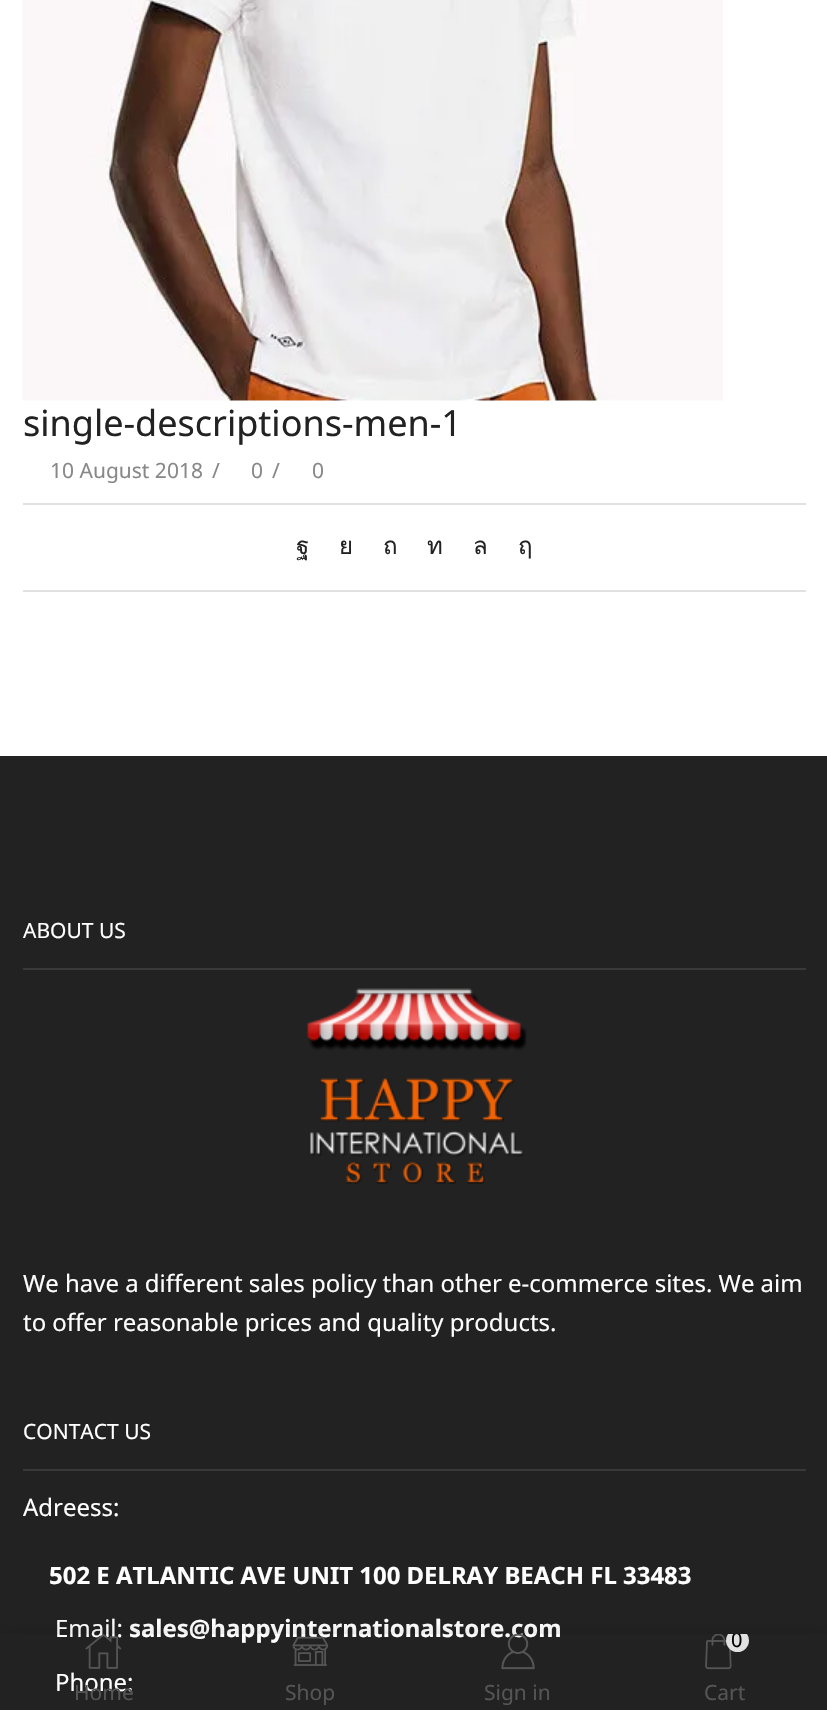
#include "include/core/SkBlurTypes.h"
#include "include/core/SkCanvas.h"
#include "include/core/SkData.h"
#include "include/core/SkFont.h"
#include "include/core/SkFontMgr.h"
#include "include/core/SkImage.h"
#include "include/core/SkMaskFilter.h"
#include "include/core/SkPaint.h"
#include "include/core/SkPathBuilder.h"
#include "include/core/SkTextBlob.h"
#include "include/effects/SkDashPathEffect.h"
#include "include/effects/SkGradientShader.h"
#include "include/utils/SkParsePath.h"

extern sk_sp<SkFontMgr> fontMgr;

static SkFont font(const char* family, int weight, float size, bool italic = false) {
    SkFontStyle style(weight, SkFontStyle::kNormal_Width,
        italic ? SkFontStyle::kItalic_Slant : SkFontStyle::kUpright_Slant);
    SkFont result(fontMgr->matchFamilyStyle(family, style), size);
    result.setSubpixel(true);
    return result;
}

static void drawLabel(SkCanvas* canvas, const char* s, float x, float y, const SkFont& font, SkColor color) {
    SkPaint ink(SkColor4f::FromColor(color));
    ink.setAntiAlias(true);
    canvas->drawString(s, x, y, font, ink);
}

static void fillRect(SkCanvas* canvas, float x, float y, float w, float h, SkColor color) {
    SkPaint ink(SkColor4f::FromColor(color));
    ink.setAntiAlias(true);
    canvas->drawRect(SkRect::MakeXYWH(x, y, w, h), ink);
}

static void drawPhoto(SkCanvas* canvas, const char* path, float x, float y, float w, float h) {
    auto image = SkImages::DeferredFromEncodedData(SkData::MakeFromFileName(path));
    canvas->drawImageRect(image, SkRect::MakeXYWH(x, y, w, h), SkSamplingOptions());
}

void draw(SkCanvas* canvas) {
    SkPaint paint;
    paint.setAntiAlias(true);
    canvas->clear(0xFFFFFFFF);
    drawPhoto(canvas, "assets/img1.png", 22, 0, 701, 401);
    SkFont font1 = font("Noto Sans", 400, 36);
    drawLabel(canvas, "single-descriptions-men-1", 23, 436, font1, 0xFF222222);
    SkFont font2 = font("Noto Sans", 400, 21);
    drawLabel(canvas, "10 August 2018", 50, 478, font2, 0xFF888888);
    drawLabel(canvas, "/", 212, 478, font2, 0xFF888888);
    drawLabel(canvas, "0", 251, 478, font2, 0xFF888888);
    drawLabel(canvas, "/", 272, 478, font2, 0xFF888888);
    drawLabel(canvas, "0", 312, 478, font2, 0xFF888888);
    fillRect(canvas, 23, 503, 783, 2, 0xFFE1E1E1);
    fillRect(canvas, 23, 590, 783, 2, 0xFFE1E1E1);
    SkFont font3 = font("Loma", 400, 23.95f);
    drawLabel(canvas, "ฐ", 296, 554, font3, 0xFF222222);
    drawLabel(canvas, "ย", 339, 554, font3, 0xFF222222);
    drawLabel(canvas, "ถ", 383, 554, font3, 0xFF222222);
    drawLabel(canvas, "ท", 427, 554, font3, 0xFF222222);
    drawLabel(canvas, "ล", 473, 554, font3, 0xFF222222);
    drawLabel(canvas, "ฤ", 518, 554, font3, 0xFF222222);
    fillRect(canvas, 0, 756, 827, 954, 0xFF222222);
    fillRect(canvas, 23, 968, 783, 2, 0xFF393939);
    drawLabel(canvas, "ABOUT US", 23, 938, font2, 0xFFFFFFFF);
    drawPhoto(canvas, "assets/img2.png", 307, 988, 220, 196);
    SkFont font4 = font("Noto Sans", 400, 23.95f);
    drawLabel(canvas, "We have a different sales policy than other e-commerce sites. We aim", 23, 1292, font4, 0xFFFFFFFF);
    drawLabel(canvas, "to offer reasonable prices and quality products.", 23, 1331, font4, 0xFFFFFFFF);
    fillRect(canvas, 23, 1469, 783, 2, 0xFF393939);
    drawLabel(canvas, "CONTACT US", 23, 1439, font2, 0xFFFFFFFF);
    drawLabel(canvas, "Adreess:", 23, 1516, font4, 0xFFFFFFFF);
    SkFont font5 = font("Noto Sans", 700, 23.95f);
    drawLabel(canvas, "502 E ATLANTIC AVE UNIT 100 DELRAY BEACH FL 33483", 49, 1584, font5, 0xFFFFFFFF);
    drawLabel(canvas, "Email:", 55, 1637, font4, 0xFFFFFFFF);
    drawLabel(canvas, "sales@happyinternationalstore.com", 129, 1637, font5, 0xFFFFFFFF);
    drawLabel(canvas, "Phone:", 55, 1691, font4, 0xFFFFFFFF);
    canvas->save();
    canvas->clipRect(SkRect::MakeXYWH(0, 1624, 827, 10));
    paint.setColor(0x26000000);
    paint.setMaskFilter(SkMaskFilter::MakeBlur(kNormal_SkBlurStyle, 9));
    canvas->drawRect(SkRect::MakeXYWH(3, 1634, 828, 76), paint);
    paint.setMaskFilter(nullptr);
    canvas->restore();
    drawPhoto(canvas, "assets/img3.png", 85, 1634, 37, 35);
    drawLabel(canvas, "Home", 74, 1700, font2, 0xFF555555);
    drawPhoto(canvas, "assets/img4.png", 292, 1636, 37, 30);
    drawLabel(canvas, "Shop", 285, 1700, font2, 0xFF555555);
    drawPhoto(canvas, "assets/img5.png", 501, 1634, 34, 36);
    drawLabel(canvas, "Sign in", 484, 1700, font2, 0xFF555555);
    drawPhoto(canvas, "assets/img6.png", 705, 1634, 27, 36);
    canvas->save();
    canvas->clipRect(SkRect::MakeXYWH(0, 1634, 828, 76));
    paint.setColor(0xFFE1E1E1);
    canvas->drawCircle(737.5f, 1640.5f, 11.5f, paint);
    SkFont font6 = font("Noto Sans", 400, 20);
    drawLabel(canvas, "0", 731, 1647, font6, 0xFF000000);
    canvas->restore();
    drawLabel(canvas, "Cart", 704, 1700, font2, 0xFF555555);
}
